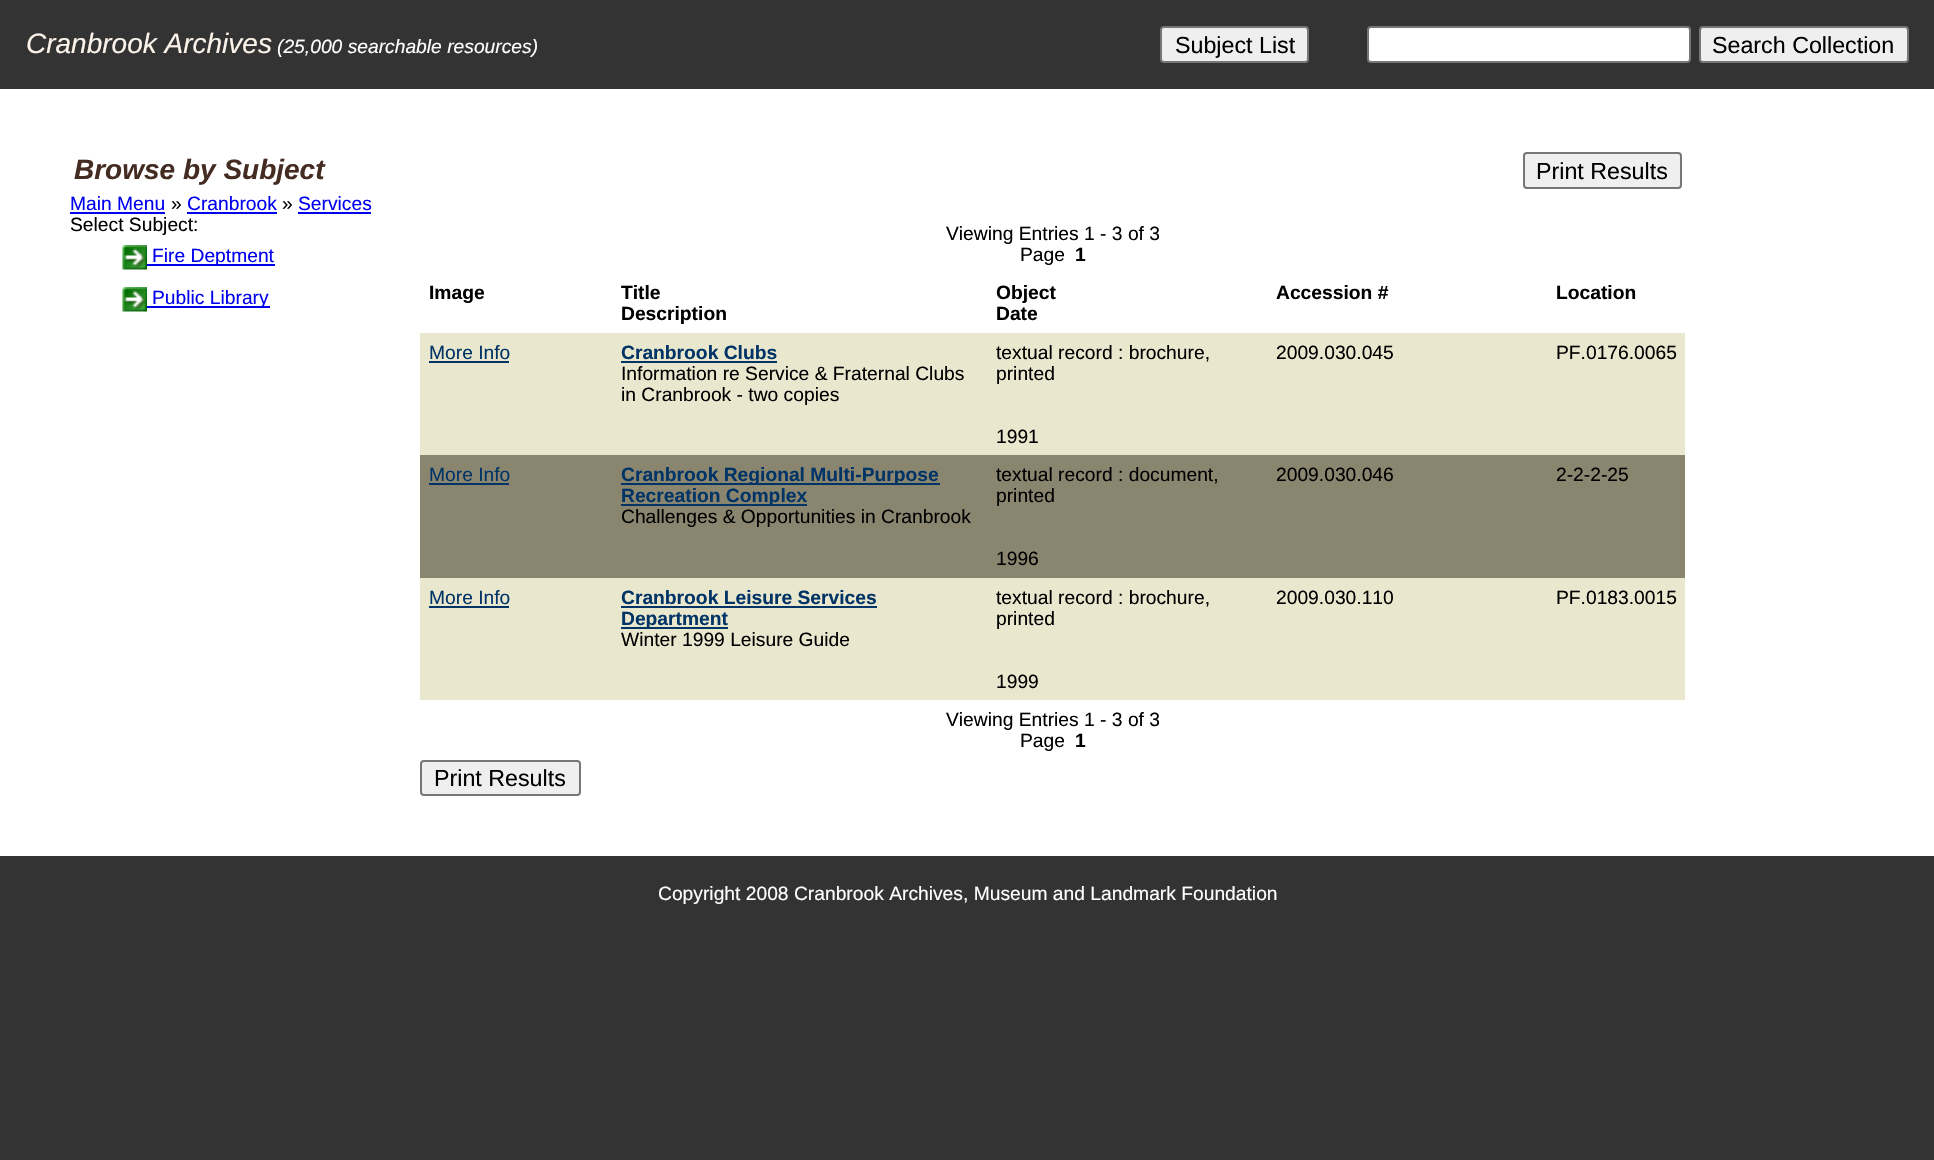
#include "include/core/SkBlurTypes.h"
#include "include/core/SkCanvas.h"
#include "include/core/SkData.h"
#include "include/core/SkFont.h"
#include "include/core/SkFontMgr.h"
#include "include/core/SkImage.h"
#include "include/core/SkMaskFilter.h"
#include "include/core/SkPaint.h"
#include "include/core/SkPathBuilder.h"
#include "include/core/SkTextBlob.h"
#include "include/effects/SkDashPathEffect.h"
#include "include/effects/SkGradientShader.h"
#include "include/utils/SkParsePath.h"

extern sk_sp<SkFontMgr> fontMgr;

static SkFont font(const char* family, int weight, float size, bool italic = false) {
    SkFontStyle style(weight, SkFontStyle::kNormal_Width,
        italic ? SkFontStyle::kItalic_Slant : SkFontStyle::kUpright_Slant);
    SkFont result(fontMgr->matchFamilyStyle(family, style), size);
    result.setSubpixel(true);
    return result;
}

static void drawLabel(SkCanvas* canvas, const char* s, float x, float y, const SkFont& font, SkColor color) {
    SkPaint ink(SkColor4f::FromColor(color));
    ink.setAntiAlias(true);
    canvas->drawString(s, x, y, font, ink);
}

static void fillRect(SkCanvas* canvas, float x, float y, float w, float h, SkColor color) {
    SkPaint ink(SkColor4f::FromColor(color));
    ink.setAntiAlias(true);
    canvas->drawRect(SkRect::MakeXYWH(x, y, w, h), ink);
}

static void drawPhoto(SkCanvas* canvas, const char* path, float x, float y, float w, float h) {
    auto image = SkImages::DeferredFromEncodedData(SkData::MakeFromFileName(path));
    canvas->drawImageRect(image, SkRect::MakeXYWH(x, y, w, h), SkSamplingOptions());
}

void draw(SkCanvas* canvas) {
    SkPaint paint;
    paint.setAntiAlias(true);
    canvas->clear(0xFF333333);
    SkFont font1 = font("Liberation Sans", 400, 28, true);
    drawLabel(canvas, "Cranbrook Archives", 26, 53, font1, 0xFFFCF4EA);
    SkFont font2 = font("Liberation Sans", 400, 19.25f, true);
    drawLabel(canvas, "(25,000 searchable resources)", 277, 53, font2, 0xFFFFFFFF);
    paint.setColor(0xFFEFEFEF);
    canvas->drawRoundRect(SkRect::MakeXYWH(1161, 27, 147, 35), 3, 3, paint);
    paint.setStroke(true);
    paint.setStrokeWidth(2);
    paint.setColor(0xFF767676);
    canvas->drawRoundRect(SkRect::MakeXYWH(1161, 27, 147, 35), 3, 3, paint);
    SkFont font3 = font("Liberation Sans", 400, 23.25f);
    drawLabel(canvas, "Subject List", 1175, 53, font3, 0xFF000000);
    paint.setStroke(false);
    paint.setColor(0xFFFFFFFF);
    canvas->drawRoundRect(SkRect::MakeXYWH(1368, 27, 322, 35), 3, 3, paint);
    paint.setStroke(true);
    paint.setColor(0xFF767676);
    canvas->drawRoundRect(SkRect::MakeXYWH(1368, 27, 322, 35), 3, 3, paint);
    paint.setStroke(false);
    paint.setColor(0xFFEFEFEF);
    canvas->drawRoundRect(SkRect::MakeXYWH(1700, 27, 208, 35), 3, 3, paint);
    paint.setStroke(true);
    paint.setColor(0xFF767676);
    canvas->drawRoundRect(SkRect::MakeXYWH(1700, 27, 208, 35), 3, 3, paint);
    drawLabel(canvas, "Search Collection", 1712, 53, font3, 0xFF000000);
    fillRect(canvas, 0, 89, 1934, 767, 0xFFFFFFFF);
    SkFont font4 = font("Liberation Sans", 700, 28, true);
    drawLabel(canvas, "Browse by Subject", 74, 179, font4, 0xFF452C23);
    paint.setStroke(false);
    paint.setColor(0xFFEFEFEF);
    canvas->drawRoundRect(SkRect::MakeXYWH(1524, 153, 157, 35), 3, 3, paint);
    paint.setStroke(true);
    paint.setColor(0xFF767676);
    canvas->drawRoundRect(SkRect::MakeXYWH(1524, 153, 157, 35), 3, 3, paint);
    drawLabel(canvas, "Print Results", 1536, 179, font3, 0xFF000000);
    SkFont font5 = font("Liberation Sans", 400, 19.25f);
    drawLabel(canvas, "Main Menu", 70, 210, font5, 0xFF0000EE);
    fillRect(canvas, 70, 212, 95, 2, 0xFF0000EE);
    drawLabel(canvas, "»", 171, 210, font5, 0xFF000000);
    drawLabel(canvas, "Cranbrook", 187, 210, font5, 0xFF0000EE);
    fillRect(canvas, 187, 212, 90, 2, 0xFF0000EE);
    drawLabel(canvas, "»", 282, 210, font5, 0xFF000000);
    drawLabel(canvas, "Services", 298, 210, font5, 0xFF0000EE);
    fillRect(canvas, 298, 212, 73, 2, 0xFF0000EE);
    drawLabel(canvas, "Select Subject:", 70, 231, font5, 0xFF000000);
    drawPhoto(canvas, "assets/img1.png", 122, 245, 25, 25);
    fillRect(canvas, 147, 264, 128, 2, 0xFF0000EE);
    drawLabel(canvas, "Fire Deptment", 152, 262, font5, 0xFF0000EE);
    drawPhoto(canvas, "assets/img1.png", 122, 287, 25, 25);
    fillRect(canvas, 147, 306, 123, 2, 0xFF0000EE);
    drawLabel(canvas, "Public Library", 152, 304, font5, 0xFF0000EE);
    drawLabel(canvas, "Viewing Entries 1 - 3 of 3", 946, 240, font5, 0xFF000000);
    drawLabel(canvas, "Page", 1020, 261, font5, 0xFF000000);
    SkFont font6 = font("Liberation Sans", 700, 19.25f);
    drawLabel(canvas, "1", 1075, 261, font6, 0xFF000000);
    drawLabel(canvas, "Image", 429, 299, font6, 0xFF000000);
    drawLabel(canvas, "Title", 621, 299, font6, 0xFF000000);
    drawLabel(canvas, "Description", 621, 320, font6, 0xFF000000);
    drawLabel(canvas, "Object", 996, 299, font6, 0xFF000000);
    drawLabel(canvas, "Date", 996, 320, font6, 0xFF000000);
    drawLabel(canvas, "Accession #", 1276, 299, font6, 0xFF000000);
    drawLabel(canvas, "Location", 1556, 299, font6, 0xFF000000);
    fillRect(canvas, 420, 333, 1265, 122, 0xFFE9E7CE);
    drawLabel(canvas, "More Info", 429, 359, font5, 0xFF003366);
    fillRect(canvas, 429, 361, 80, 2, 0xFF003366);
    drawLabel(canvas, "Cranbrook Clubs", 621, 359, font6, 0xFF003366);
    fillRect(canvas, 621, 361, 156, 2, 0xFF003366);
    drawLabel(canvas, "Information re Service & Fraternal Clubs", 621, 380, font5, 0xFF000000);
    drawLabel(canvas, "in Cranbrook - two copies", 621, 401, font5, 0xFF000000);
    drawLabel(canvas, "textual record : brochure,", 996, 359, font5, 0xFF000000);
    drawLabel(canvas, "printed", 996, 380, font5, 0xFF000000);
    drawLabel(canvas, "1991", 996, 443, font5, 0xFF000000);
    drawLabel(canvas, "2009.030.045", 1276, 359, font5, 0xFF000000);
    drawLabel(canvas, "PF.0176.0065", 1556, 359, font5, 0xFF000000);
    fillRect(canvas, 420, 455, 1265, 123, 0xFF8A856F);
    drawLabel(canvas, "More Info", 429, 481, font5, 0xFF003366);
    fillRect(canvas, 429, 483, 80, 2, 0xFF003366);
    fillRect(canvas, 621, 483, 319, 2, 0xFF003366);
    drawLabel(canvas, "Cranbrook Regional Multi-Purpose", 621, 481, font6, 0xFF003366);
    fillRect(canvas, 621, 504, 186, 2, 0xFF003366);
    drawLabel(canvas, "Recreation Complex", 621, 502, font6, 0xFF003366);
    drawLabel(canvas, "Challenges & Opportunities in Cranbrook", 621, 523, font5, 0xFF000000);
    drawLabel(canvas, "textual record : document,", 996, 481, font5, 0xFF000000);
    drawLabel(canvas, "printed", 996, 502, font5, 0xFF000000);
    drawLabel(canvas, "1996", 996, 565, font5, 0xFF000000);
    drawLabel(canvas, "2009.030.046", 1276, 481, font5, 0xFF000000);
    drawLabel(canvas, "2-2-2-25", 1556, 481, font5, 0xFF000000);
    fillRect(canvas, 420, 578, 1265, 122, 0xFFE9E7CE);
    drawLabel(canvas, "More Info", 429, 604, font5, 0xFF003366);
    fillRect(canvas, 429, 606, 80, 2, 0xFF003366);
    drawLabel(canvas, "Cranbrook Leisure Services", 621, 604, font6, 0xFF003366);
    fillRect(canvas, 621, 606, 256, 2, 0xFF003366);
    fillRect(canvas, 621, 627, 107, 2, 0xFF003366);
    drawLabel(canvas, "Department", 621, 625, font6, 0xFF003366);
    drawLabel(canvas, "Winter 1999 Leisure Guide", 621, 646, font5, 0xFF000000);
    drawLabel(canvas, "textual record : brochure,", 996, 604, font5, 0xFF000000);
    drawLabel(canvas, "printed", 996, 625, font5, 0xFF000000);
    drawLabel(canvas, "1999", 996, 688, font5, 0xFF000000);
    drawLabel(canvas, "2009.030.110", 1276, 604, font5, 0xFF000000);
    drawLabel(canvas, "PF.0183.0015", 1556, 604, font5, 0xFF000000);
    drawLabel(canvas, "Viewing Entries 1 - 3 of 3", 946, 726, font5, 0xFF000000);
    drawLabel(canvas, "Page", 1020, 747, font5, 0xFF000000);
    drawLabel(canvas, "1", 1075, 747, font6, 0xFF000000);
    paint.setStroke(false);
    paint.setColor(0xFFEFEFEF);
    canvas->drawRoundRect(SkRect::MakeXYWH(421, 761, 159, 34), 3, 3, paint);
    paint.setStroke(true);
    paint.setColor(0xFF767676);
    canvas->drawRoundRect(SkRect::MakeXYWH(421, 761, 159, 34), 3, 3, paint);
    drawLabel(canvas, "Print Results", 434, 786, font3, 0xFF000000);
    drawLabel(canvas, "Copyright 2008 Cranbrook Archives, Museum and Landmark Foundation", 658, 900, font5, 0xFFFFFFFF);
}
